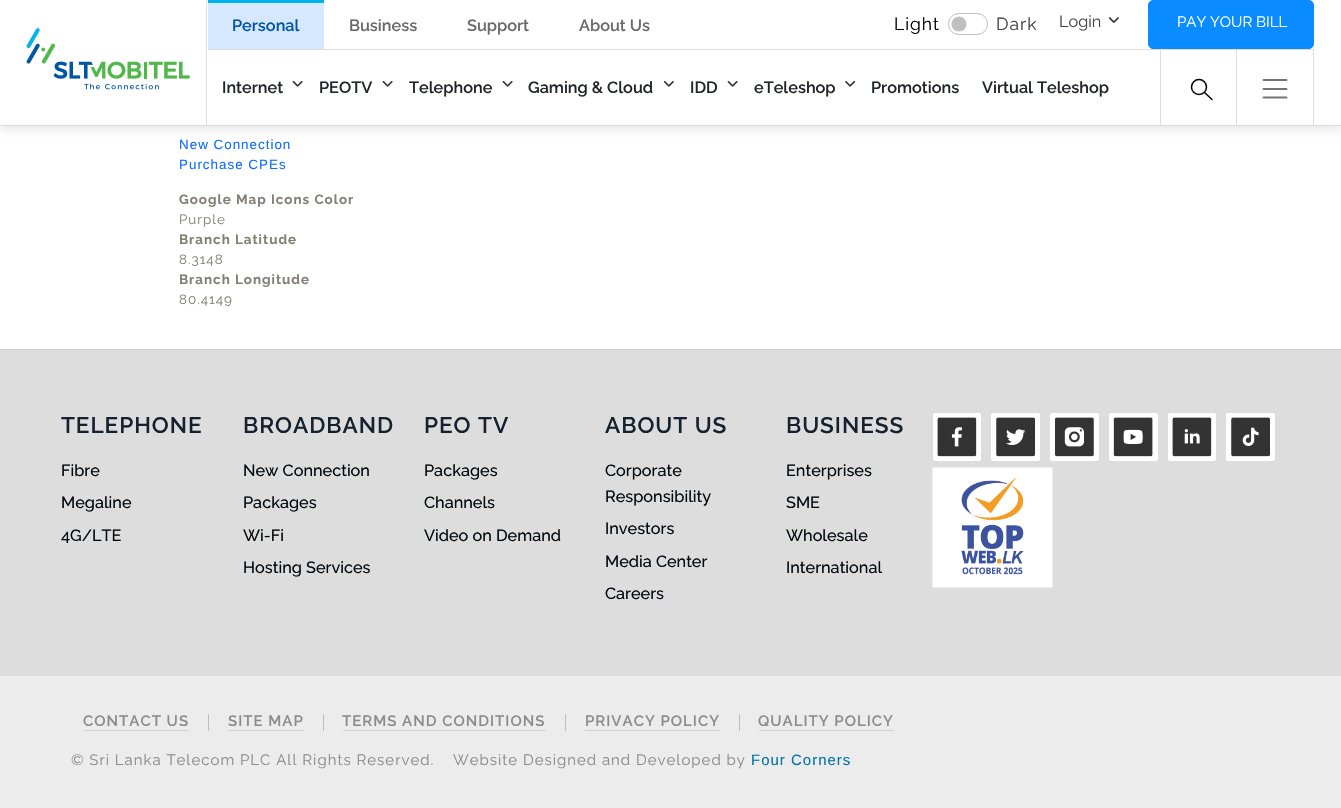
#include "include/core/SkBlurTypes.h"
#include "include/core/SkCanvas.h"
#include "include/core/SkData.h"
#include "include/core/SkFont.h"
#include "include/core/SkFontMgr.h"
#include "include/core/SkImage.h"
#include "include/core/SkMaskFilter.h"
#include "include/core/SkPaint.h"
#include "include/core/SkPathBuilder.h"
#include "include/core/SkTextBlob.h"
#include "include/effects/SkDashPathEffect.h"
#include "include/effects/SkGradientShader.h"
#include "include/utils/SkParsePath.h"

extern sk_sp<SkFontMgr> fontMgr;

static SkFont font(const char* family, int weight, float size, bool italic = false) {
    SkFontStyle style(weight, SkFontStyle::kNormal_Width,
        italic ? SkFontStyle::kItalic_Slant : SkFontStyle::kUpright_Slant);
    SkFont result(fontMgr->matchFamilyStyle(family, style), size);
    result.setSubpixel(true);
    return result;
}

static void drawLabel(SkCanvas* canvas, const char* s, float x, float y, const SkFont& font, SkColor color) {
    SkPaint ink(SkColor4f::FromColor(color));
    ink.setAntiAlias(true);
    canvas->drawString(s, x, y, font, ink);
}

static void drawTracked(SkCanvas* canvas, const char* s, float x, float y, const SkFont& font, const SkPaint& ink, float letter, float word) {
    std::vector<SkGlyphID> glyphs(font.countText(s, strlen(s), SkTextEncoding::kUTF8));
    std::vector<float> xs(glyphs.size());
    font.textToGlyphs(s, strlen(s), SkTextEncoding::kUTF8, glyphs);
    font.getXPos(glyphs, xs, x);
    float extra = 0;
    for (size_t i = 0; i < glyphs.size(); i++) {
        xs[i] += extra;
        extra += letter + word * (glyphs[i] == font.unicharToGlyph(' '));
    }
    canvas->drawTextBlob(SkTextBlob::MakeFromPosHGlyphs(glyphs, xs, y, font), 0, 0, ink);
}

static void fillRect(SkCanvas* canvas, float x, float y, float w, float h, SkColor color) {
    SkPaint ink(SkColor4f::FromColor(color));
    ink.setAntiAlias(true);
    canvas->drawRect(SkRect::MakeXYWH(x, y, w, h), ink);
}

static void drawPhoto(SkCanvas* canvas, const char* path, float x, float y, float w, float h) {
    auto image = SkImages::DeferredFromEncodedData(SkData::MakeFromFileName(path));
    canvas->drawImageRect(image, SkRect::MakeXYWH(x, y, w, h), SkSamplingOptions());
}

static SkPath parsePath(const char* data, bool evenOdd = false) {
    SkPath result = *SkParsePath::FromSVGString(data);
    if (evenOdd) result.setFillType(SkPathFillType::kEvenOdd);
    return result;
}

void draw(SkCanvas* canvas) {
    SkPaint paint;
    paint.setAntiAlias(true);
    canvas->clear(0xFFFFFFFF);
    paint.setColor(0x17000000);
    paint.setMaskFilter(SkMaskFilter::MakeBlur(kNormal_SkBlurStyle, 4));
    canvas->drawRect(SkRect::MakeXYWH(0, 4, 1341, 126), paint);
    paint.setMaskFilter(nullptr);
    fillRect(canvas, 0, 0, 1341, 125, 0xFFFFFFFF);
    fillRect(canvas, 0, 125, 1341, 1, 0xFFDDDDDD);
    drawPhoto(canvas, "assets/img1.png", 26, 28, 164, 62);
    fillRect(canvas, 206, 0, 1, 125, 0xFFDDDDDD);
    SkFont font1 = font("Raleway", 400, 17.5f);
    paint.setColor(0xFF000000);
    drawTracked(canvas, "Light", 894, 30, font1, paint, 1, 0);
    paint.setColor(0xFFBFBFBF);
    canvas->drawCircle(959, 24, 7.5f, paint);
    paint.setStroke(true);
    paint.setStrokeWidth(1);
    canvas->drawRoundRect(SkRect::MakeXYWH(948.5f, 13.5f, 39, 21), 10.5f, 10.5f, paint);
    paint.setStroke(false);
    paint.setColor(0xFF424242);
    drawTracked(canvas, "Dark", 996, 30, font1, paint, 1, 0);
    SkFont font2 = font("Raleway", 400, 16.25f);
    drawLabel(canvas, "Login", 1059, 27, font2, 0xFF424242);
    drawPhoto(canvas, "assets/img2.png", 1108, 17, 11, 6);
    paint.setColor(0xFF0A8BFF);
    canvas->drawRoundRect(SkRect::MakeXYWH(1148.5f, 0.5f, 165, 48), 4.5f, 4.5f, paint);
    paint.setStroke(true);
    canvas->drawRoundRect(SkRect::MakeXYWH(1148.5f, 0.5f, 165, 48), 4.5f, 4.5f, paint);
    SkFont font3 = font("Raleway", 400, 15);
    drawLabel(canvas, "PAY YOUR BILL", 1177, 27, font3, 0xFFFFFFFF);
    fillRect(canvas, 208, 3, 116, 46, 0xFFD6E8FF);
    fillRect(canvas, 208, 0, 116, 3, 0xFF00B4EB);
    SkFont font4 = font("Raleway", 600, 16.25f);
    drawLabel(canvas, "Personal", 232, 31, font4, 0xFF0056A2);
    drawLabel(canvas, "Internet", 222, 93, font4, 0xFF212529);
    drawPhoto(canvas, "assets/img3.png", 292, 81, 11, 6);
    drawLabel(canvas, "PEOTV", 319, 93, font4, 0xFF212529);
    drawPhoto(canvas, "assets/img3.png", 382, 81, 11, 6);
    drawLabel(canvas, "Telephone", 409, 93, font4, 0xFF212529);
    drawPhoto(canvas, "assets/img3.png", 502, 81, 11, 6);
    drawLabel(canvas, "Gaming & Cloud", 528, 93, font4, 0xFF212529);
    drawPhoto(canvas, "assets/img4.png", 663, 81, 11, 6);
    drawLabel(canvas, "IDD", 690, 93, font4, 0xFF212529);
    drawPhoto(canvas, "assets/img3.png", 727, 81, 11, 6);
    drawLabel(canvas, "eTeleshop", 754, 93, font4, 0xFF212529);
    drawPhoto(canvas, "assets/img5.png", 845, 81, 11, 6);
    drawLabel(canvas, "Promotions", 871, 93, font4, 0xFF212529);
    drawLabel(canvas, "Virtual Teleshop", 982, 93, font4, 0xFF212529);
    drawLabel(canvas, "Business", 349, 31, font4, 0xFF696969);
    drawLabel(canvas, "Support", 467, 31, font4, 0xFF696969);
    drawLabel(canvas, "About Us", 579, 31, font4, 0xFF696969);
    fillRect(canvas, 208, 49, 1106, 1, 0xFFDDDDDD);
    fillRect(canvas, 1236, 50, 1, 75, 0xFFDDDDDD);
    fillRect(canvas, 1160, 50, 1, 75, 0xFFDDDDDD);
    paint.setStrokeWidth(1.5f);
    paint.setColor(0xFF000000);
    canvas->drawCircle(1199, 87, 7.5f, paint);
    paint.setStrokeCap(SkPaint::kRound_Cap);
    paint.setStrokeJoin(SkPaint::kRound_Join);
    canvas->drawPath(parsePath("M1212 99.5L1204.5 92.5"), paint);
    fillRect(canvas, 1313, 50, 1, 75, 0xFFDDDDDD);
    paint.setStrokeWidth(1.9f);
    paint.setColor(0xFF737373);
    canvas->drawPath(parsePath("M1263.5 80H1286.5M1263.5 89H1286.5M1263.5 97.5H1286.5"), paint);
    SkFont font5 = font("Liberation Sans", 400, 13.4f);
    paint.setStroke(false);
    paint.setColor(0xFF0D6EFD);
    drawTracked(canvas, "New Connection", 179, 149, font5, paint, 1, 0);
    drawTracked(canvas, "Purchase CPEs", 179, 169, font5, paint, 1, 0);
    SkFont font6 = font("Raleway", 700, 13.4f);
    paint.setColor(0xFF827F75);
    drawTracked(canvas, "Google Map Icons Color", 179, 204, font6, paint, 1, 0);
    SkFont font7 = font("Raleway", 400, 13.4f);
    drawTracked(canvas, "Purple", 179, 224, font7, paint, 1, 0);
    drawTracked(canvas, "Branch Latitude", 179, 244, font6, paint, 1, 0);
    drawTracked(canvas, "8.3148", 179, 264, font7, paint, 1, 0);
    drawTracked(canvas, "Branch Longitude", 179, 284, font6, paint, 1, 0);
    drawTracked(canvas, "80.4149", 179, 304, font7, paint, 1, 0);
    fillRect(canvas, 0, 350, 1341, 326, 0xFFDDDDDD);
    fillRect(canvas, 0, 349, 1341, 1, 0xFFCCCCCC);
    SkFont font8 = font("Raleway", 600, 22.5f);
    paint.setColor(0xFF15212E);
    drawTracked(canvas, "TELEPHONE", 61, 433, font8, paint, 1, 0);
    SkFont font9 = font("Raleway", 500, 16.25f);
    drawLabel(canvas, "Fibre", 61, 476, font9, 0xFF02080E);
    drawLabel(canvas, "Megaline", 61, 508, font9, 0xFF02080E);
    drawLabel(canvas, "4G/LTE", 61, 541, font9, 0xFF02080E);
    drawTracked(canvas, "BROADBAND", 243, 433, font8, paint, 1, 0);
    drawLabel(canvas, "New Connection", 243, 476, font9, 0xFF02080E);
    drawLabel(canvas, "Packages", 243, 508, font9, 0xFF02080E);
    drawLabel(canvas, "Wi-Fi", 243, 541, font9, 0xFF02080E);
    drawLabel(canvas, "Hosting Services", 243, 573, font9, 0xFF02080E);
    drawTracked(canvas, "PEO TV", 424, 433, font8, paint, 1, 0);
    drawLabel(canvas, "Packages", 424, 476, font9, 0xFF02080E);
    drawLabel(canvas, "Channels", 424, 508, font9, 0xFF02080E);
    drawLabel(canvas, "Video on Demand", 424, 541, font9, 0xFF02080E);
    drawTracked(canvas, "ABOUT US", 605, 433, font8, paint, 1, 0);
    drawLabel(canvas, "Corporate", 605, 476, font9, 0xFF02080E);
    drawLabel(canvas, "Responsibility", 605, 502, font9, 0xFF02080E);
    drawLabel(canvas, "Investors", 605, 534, font9, 0xFF02080E);
    drawLabel(canvas, "Media Center", 605, 567, font9, 0xFF02080E);
    drawLabel(canvas, "Careers", 605, 599, font9, 0xFF02080E);
    drawTracked(canvas, "BUSINESS", 786, 433, font8, paint, 1, 0);
    drawLabel(canvas, "Enterprises", 786, 476, font9, 0xFF02080E);
    drawLabel(canvas, "SME", 786, 508, font9, 0xFF02080E);
    drawLabel(canvas, "Wholesale", 786, 541, font9, 0xFF02080E);
    drawLabel(canvas, "International", 786, 573, font9, 0xFF02080E);
    drawPhoto(canvas, "assets/img6.png", 933, 413, 48, 48);
    drawPhoto(canvas, "assets/img7.png", 991, 413, 49, 48);
    drawPhoto(canvas, "assets/img8.png", 1050, 413, 49, 48);
    drawPhoto(canvas, "assets/img9.png", 1109, 413, 49, 48);
    drawPhoto(canvas, "assets/img10.png", 1168, 413, 48, 48);
    drawPhoto(canvas, "assets/img11.png", 1226, 413, 49, 48);
    drawPhoto(canvas, "assets/img12.png", 932, 467, 121, 121);
    fillRect(canvas, 0, 676, 1341, 132, 0xFFECECEC);
    fillRect(canvas, 84, 730, 105, 1, 0xFFD1D1D1);
    SkFont font10 = font("Raleway", 600, 15);
    paint.setColor(0xFF8B8B8B);
    drawTracked(canvas, "CONTACT US", 83, 726, font10, paint, 1, 0);
    fillRect(canvas, 208, 714, 1, 17, 0xFFBFBFBF);
    fillRect(canvas, 228, 730, 76, 1, 0xFFD1D1D1);
    drawTracked(canvas, "SITE MAP", 228, 726, font10, paint, 1, 0);
    fillRect(canvas, 323, 714, 1, 17, 0xFFBFBFBF);
    fillRect(canvas, 343, 730, 203, 1, 0xFFD1D1D1);
    drawTracked(canvas, "TERMS AND CONDITIONS", 342, 726, font10, paint, 1, 0);
    fillRect(canvas, 565, 714, 1, 17, 0xFFBFBFBF);
    fillRect(canvas, 585, 730, 135, 1, 0xFFD1D1D1);
    drawTracked(canvas, "PRIVACY POLICY", 585, 726, font10, paint, 1, 0);
    fillRect(canvas, 739, 714, 1, 17, 0xFFBFBFBF);
    fillRect(canvas, 759, 730, 135, 1, 0xFFD1D1D1);
    drawTracked(canvas, "QUALITY POLICY", 758, 726, font10, paint, 1, 0);
    drawTracked(canvas, "© Sri Lanka Telecom PLC All Rights Reserved.", 71, 765, font3, paint, 1, 0);
    drawTracked(canvas, "Website Designed and Developed by", 453, 765, font3, paint, 1, 0);
    SkFont font11 = font("Liberation Sans", 400, 15);
    paint.setColor(0xFF0075A9);
    drawTracked(canvas, "Four Corners", 751, 765, font11, paint, 1, 0);
}
